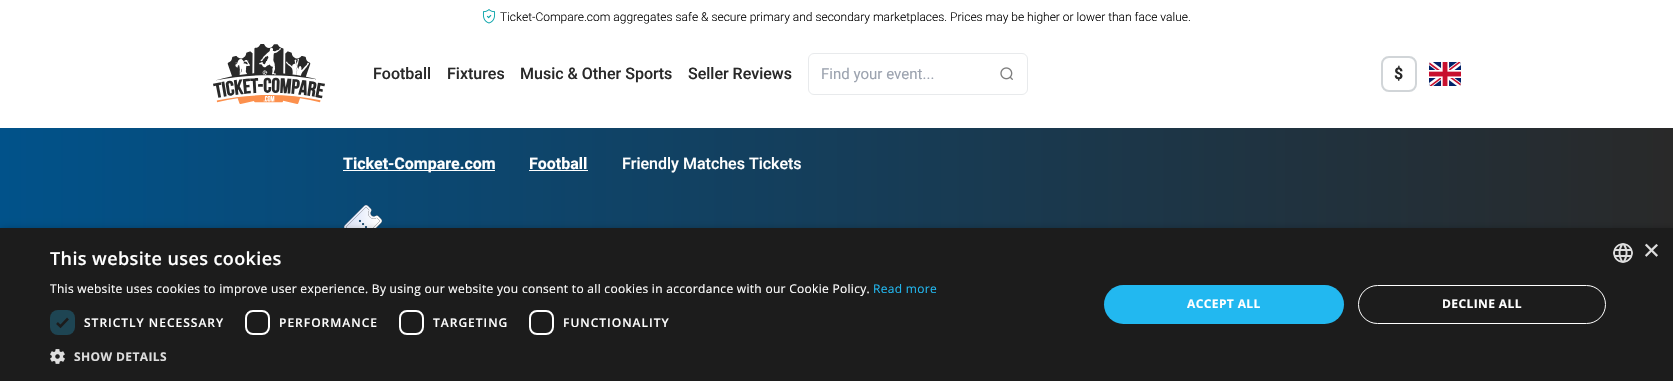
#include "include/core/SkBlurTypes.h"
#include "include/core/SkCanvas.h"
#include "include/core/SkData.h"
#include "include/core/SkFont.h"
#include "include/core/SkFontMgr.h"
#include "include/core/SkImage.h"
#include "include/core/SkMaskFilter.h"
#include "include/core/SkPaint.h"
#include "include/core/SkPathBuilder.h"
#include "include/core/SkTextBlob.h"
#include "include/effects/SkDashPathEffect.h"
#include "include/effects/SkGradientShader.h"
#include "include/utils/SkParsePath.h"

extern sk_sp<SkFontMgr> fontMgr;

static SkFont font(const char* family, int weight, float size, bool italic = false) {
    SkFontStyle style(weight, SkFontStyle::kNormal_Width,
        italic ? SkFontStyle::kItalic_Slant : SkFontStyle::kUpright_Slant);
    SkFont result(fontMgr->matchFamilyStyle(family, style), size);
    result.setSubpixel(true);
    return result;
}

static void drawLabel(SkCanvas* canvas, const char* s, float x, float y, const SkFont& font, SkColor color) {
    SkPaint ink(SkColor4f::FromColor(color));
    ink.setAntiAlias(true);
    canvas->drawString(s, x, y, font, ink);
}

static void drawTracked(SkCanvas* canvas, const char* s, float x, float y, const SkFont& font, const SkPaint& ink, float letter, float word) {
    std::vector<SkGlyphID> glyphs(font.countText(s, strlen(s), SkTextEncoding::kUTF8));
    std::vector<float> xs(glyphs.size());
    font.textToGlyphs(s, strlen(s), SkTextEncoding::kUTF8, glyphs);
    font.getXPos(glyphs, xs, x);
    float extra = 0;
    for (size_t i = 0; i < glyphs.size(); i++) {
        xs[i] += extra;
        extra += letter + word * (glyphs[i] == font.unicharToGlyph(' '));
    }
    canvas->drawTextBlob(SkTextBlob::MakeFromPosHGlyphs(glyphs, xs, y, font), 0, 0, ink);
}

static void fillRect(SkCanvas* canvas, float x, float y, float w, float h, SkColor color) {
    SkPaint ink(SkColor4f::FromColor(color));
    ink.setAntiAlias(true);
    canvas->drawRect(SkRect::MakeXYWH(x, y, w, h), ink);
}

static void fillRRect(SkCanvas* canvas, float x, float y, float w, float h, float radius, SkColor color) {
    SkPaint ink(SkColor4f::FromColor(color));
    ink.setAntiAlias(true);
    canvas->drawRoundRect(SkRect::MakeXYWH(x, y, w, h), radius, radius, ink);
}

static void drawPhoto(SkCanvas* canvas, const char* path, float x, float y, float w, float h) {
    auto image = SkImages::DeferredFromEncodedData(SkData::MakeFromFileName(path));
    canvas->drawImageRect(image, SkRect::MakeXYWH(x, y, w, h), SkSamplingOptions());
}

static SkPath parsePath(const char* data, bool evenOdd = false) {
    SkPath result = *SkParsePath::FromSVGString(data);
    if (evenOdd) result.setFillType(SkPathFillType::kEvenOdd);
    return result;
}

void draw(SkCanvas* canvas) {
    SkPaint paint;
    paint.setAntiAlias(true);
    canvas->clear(0xFFFFFFFF);
    drawPhoto(canvas, "assets/img1.png", 482, 9, 14, 15);
    SkFont font1 = font("Roboto", 300, 12);
    drawLabel(canvas, "Ticket-Compare.com aggregates safe & secure primary and secondary marketplaces. Prices may be higher or lower than face value.", 500, 21, font1, 0xFF000000);
    drawPhoto(canvas, "assets/img2.png", 213, 44, 112, 60);
    SkFont font2 = font("Roboto", 500, 16);
    drawLabel(canvas, "Football", 373, 79, font2, 0xFF292929);
    drawLabel(canvas, "Fixtures", 447, 79, font2, 0xFF292929);
    drawLabel(canvas, "Music & Other Sports", 520, 79, font2, 0xFF292929);
    drawLabel(canvas, "Seller Reviews", 688, 79, font2, 0xFF292929);
    paint.setStroke(true);
    paint.setStrokeWidth(1);
    paint.setColor(0xFFE8EAEC);
    canvas->drawRoundRect(SkRect::MakeXYWH(808.5f, 53.5f, 219, 41), 5.5f, 5.5f, paint);
    SkFont font3 = font("Roboto", 400, 15);
    drawLabel(canvas, "Find your event...", 821, 79, font3, 0xFF9CA3AF);
    drawPhoto(canvas, "assets/img3.png", 1000, 67, 13, 13);
    paint.setStrokeWidth(2);
    paint.setColor(0xFFD1D5D8);
    canvas->drawRoundRect(SkRect::MakeXYWH(1382, 57, 34, 34), 7, 7, paint);
    SkFont font4 = font("Roboto", 700, 16);
    drawLabel(canvas, "$", 1394, 79, font4, 0xFF292929);
    drawPhoto(canvas, "assets/img4.png", 1429, 62, 32, 24);
    paint.setStroke(false);
    {
        const SkColor colors[] = {0xFF01528A, 0xFF292929};
        const float stops[] = {0, 1};
        const SkPoint ends[] = {{0, 318}, {1673, 318}};
        paint.setShader(SkGradientShader::MakeLinear(ends, colors, stops, 2, SkTileMode::kClamp));
        paint.setAlpha(255);
    }
    canvas->drawRect(SkRect::MakeXYWH(0, 128, 1673, 100), paint);
    fillRect(canvas, 343, 170, 152, 1, 0xFFFFFFFF);
    drawLabel(canvas, "Ticket-Compare.com", 343, 169, font4, 0xFFFFFFFF);
    drawLabel(canvas, "Football", 529, 169, font4, 0xFFFFFFFF);
    fillRect(canvas, 529, 170, 59, 1, 0xFFFFFFFF);
    drawLabel(canvas, "Friendly Matches Tickets", 622, 169, font2, 0xFFFFFFFF);
    drawPhoto(canvas, "assets/img5.png", 344, 205, 38, 23);
    paint.setShader(nullptr);
    paint.setColor(0x59000000);
    paint.setMaskFilter(SkMaskFilter::MakeBlur(kNormal_SkBlurStyle, 4));
    canvas->drawRect(SkRect::MakeXYWH(1, 230, 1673, 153), paint);
    paint.setMaskFilter(nullptr);
    fillRect(canvas, 0, 228, 1673, 153, 0xFF1C1C1C);
    SkFont font5 = font("Open Sans", 600, 18);
    paint.setColor(0xFFFFFFFF);
    drawTracked(canvas, "This website uses cookies", 50, 265, font5, paint, 0.4f, 0);
    SkFont font6 = font("Open Sans", 400, 12);
    drawTracked(canvas, "This website uses cookies to improve user experience. By using our website you consent to all cookies in accordance with our Cookie Policy.", 50, 293, font6, paint, 0.3f, 0);
    paint.setColor(0xFF22B8F0);
    drawTracked(canvas, "Read more", 873, 293, font6, paint, 0.3f, 0);
    fillRRect(canvas, 50, 310, 25, 25, 8, 0xFF1E4553);
    paint.setStroke(true);
    paint.setStrokeWidth(2.6f);
    paint.setColor(0xFF1C1C1C);
    canvas->drawPath(parsePath("M57 323L60.5 326.5L68 318.5"), paint);
    SkFont font7 = font("Open Sans", 600, 12);
    paint.setStroke(false);
    paint.setColor(0xFFFFFFFF);
    drawTracked(canvas, "STRICTLY NECESSARY", 84, 327, font7, paint, 1, 0);
    paint.setStroke(true);
    paint.setStrokeWidth(2);
    canvas->drawRoundRect(SkRect::MakeXYWH(246, 311, 23, 23), 7, 7, paint);
    paint.setStroke(false);
    drawTracked(canvas, "PERFORMANCE", 279, 327, font7, paint, 1, 0);
    paint.setStroke(true);
    canvas->drawRoundRect(SkRect::MakeXYWH(400, 311, 23, 23), 7, 7, paint);
    paint.setStroke(false);
    drawTracked(canvas, "TARGETING", 433, 327, font7, paint, 1, 0);
    paint.setStroke(true);
    canvas->drawRoundRect(SkRect::MakeXYWH(530, 311, 23, 23), 7, 7, paint);
    paint.setStroke(false);
    drawTracked(canvas, "FUNCTIONALITY", 563, 327, font7, paint, 1, 0);
    drawPhoto(canvas, "assets/img6.png", 50, 349, 15, 15);
    SkFont font8 = font("Open Sans", 700, 12);
    paint.setColor(0xFFDDDDDD);
    drawTracked(canvas, "SHOW DETAILS", 74, 361, font8, paint, 0.4f, 0);
    fillRRect(canvas, 1104, 285, 240, 39, 19.5f, 0xFF22B8F0);
    paint.setColor(0xFFFFFFFF);
    drawTracked(canvas, "ACCEPT ALL", 1187, 308, font8, paint, 0.4f, 0);
    paint.setStroke(true);
    paint.setStrokeWidth(1);
    canvas->drawRoundRect(SkRect::MakeXYWH(1358.5f, 285.5f, 247, 38), 19, 19, paint);
    paint.setStroke(false);
    drawTracked(canvas, "DECLINE ALL", 1442, 308, font8, paint, 0.4f, 0);
    drawPhoto(canvas, "assets/img7.png", 1613, 243, 20, 20);
    SkFont font9 = font("Liberation Sans", 400, 29);
    drawLabel(canvas, "×", 1643, 260, font9, 0xFFDDDDDD);
}
